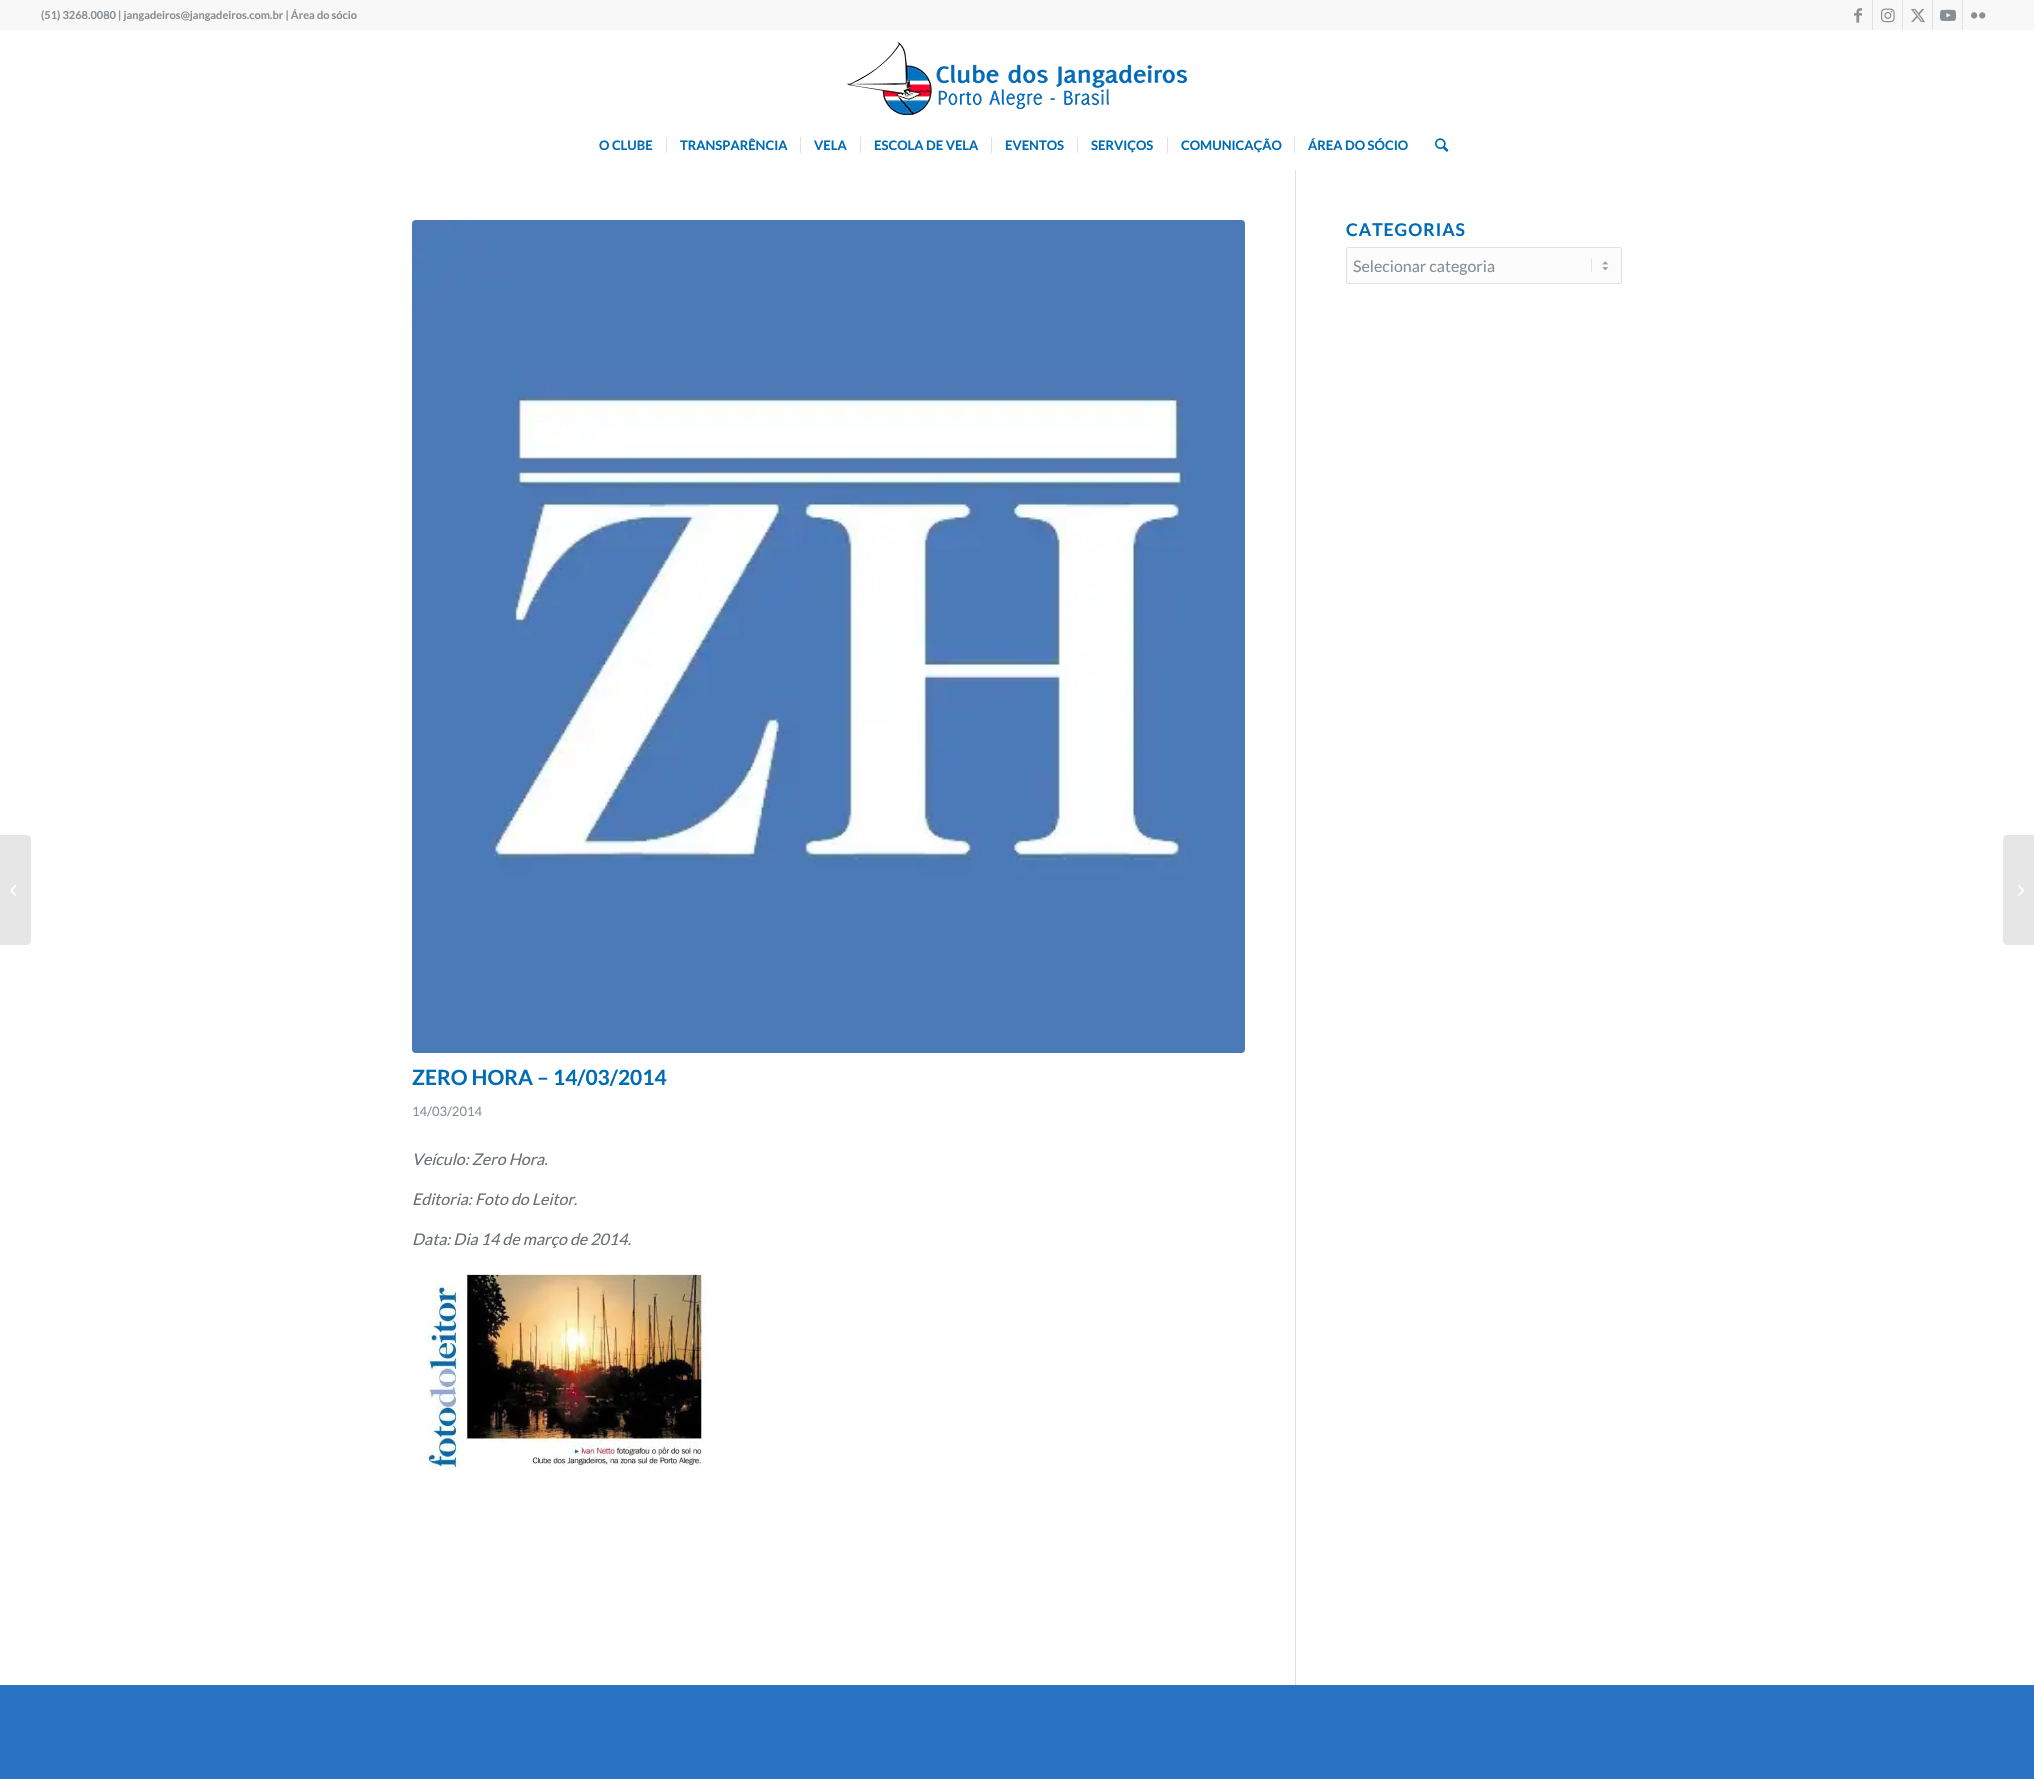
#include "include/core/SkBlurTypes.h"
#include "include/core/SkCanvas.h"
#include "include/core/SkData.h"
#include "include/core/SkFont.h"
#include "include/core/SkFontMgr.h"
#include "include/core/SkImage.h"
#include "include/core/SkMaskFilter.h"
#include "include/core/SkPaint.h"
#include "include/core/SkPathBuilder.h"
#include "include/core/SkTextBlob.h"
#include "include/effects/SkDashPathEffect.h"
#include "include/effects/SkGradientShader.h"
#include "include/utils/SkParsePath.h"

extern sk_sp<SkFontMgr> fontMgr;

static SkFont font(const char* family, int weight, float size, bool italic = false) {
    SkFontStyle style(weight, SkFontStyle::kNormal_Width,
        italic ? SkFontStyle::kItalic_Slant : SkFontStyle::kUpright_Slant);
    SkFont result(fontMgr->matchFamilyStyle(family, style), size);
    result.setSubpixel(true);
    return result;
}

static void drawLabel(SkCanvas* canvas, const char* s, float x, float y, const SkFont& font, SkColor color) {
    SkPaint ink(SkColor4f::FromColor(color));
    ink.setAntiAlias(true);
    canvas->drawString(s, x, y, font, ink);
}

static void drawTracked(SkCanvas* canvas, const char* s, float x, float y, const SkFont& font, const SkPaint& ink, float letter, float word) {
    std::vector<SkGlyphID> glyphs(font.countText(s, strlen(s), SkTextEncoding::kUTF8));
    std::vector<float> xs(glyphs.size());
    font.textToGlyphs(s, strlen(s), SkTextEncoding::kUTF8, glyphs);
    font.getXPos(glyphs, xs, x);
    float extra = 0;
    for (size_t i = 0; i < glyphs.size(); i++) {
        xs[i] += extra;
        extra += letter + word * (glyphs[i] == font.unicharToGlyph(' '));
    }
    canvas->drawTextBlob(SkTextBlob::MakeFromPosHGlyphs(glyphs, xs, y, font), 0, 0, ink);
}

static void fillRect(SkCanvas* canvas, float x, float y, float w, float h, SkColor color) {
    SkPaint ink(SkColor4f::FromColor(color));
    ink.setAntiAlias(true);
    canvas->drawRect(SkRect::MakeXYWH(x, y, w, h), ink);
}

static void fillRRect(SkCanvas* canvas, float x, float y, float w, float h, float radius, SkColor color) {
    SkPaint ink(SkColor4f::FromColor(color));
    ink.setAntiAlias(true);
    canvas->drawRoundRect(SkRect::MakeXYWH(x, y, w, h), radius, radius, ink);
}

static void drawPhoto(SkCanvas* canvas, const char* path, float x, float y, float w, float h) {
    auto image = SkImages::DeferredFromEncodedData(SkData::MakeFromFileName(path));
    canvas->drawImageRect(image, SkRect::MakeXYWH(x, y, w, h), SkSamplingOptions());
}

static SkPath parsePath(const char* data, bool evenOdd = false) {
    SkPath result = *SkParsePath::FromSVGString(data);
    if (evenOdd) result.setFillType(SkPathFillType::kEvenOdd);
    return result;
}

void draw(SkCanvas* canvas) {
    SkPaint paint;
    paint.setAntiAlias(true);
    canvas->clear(0xFF2973C2);
    fillRect(canvas, 0, 30, 2034, 1655, 0xFFFFFFFF);
    fillRect(canvas, 0, 0, 2034, 30, 0xFFF8F8F8);
    SkFont font1 = font("Lato", 700, 11);
    drawLabel(canvas, "(51) 3268.0080 | jangadeiros@jangadeiros.com.br | Área do sócio", 41, 19, font1, 0xFF889095);
    fillRect(canvas, 1872, 0, 1, 30, 0xFFE1E1E1);
    drawPhoto(canvas, "assets/img1.png", 1854, 8, 8, 15);
    fillRect(canvas, 1902, 0, 1, 30, 0xFFE1E1E1);
    drawPhoto(canvas, "assets/img2.png", 1881, 8, 14, 15);
    fillRect(canvas, 1932, 0, 1, 30, 0xFFE1E1E1);
    drawPhoto(canvas, "assets/img3.png", 1911, 8, 14, 14);
    fillRect(canvas, 1962, 0, 1, 30, 0xFFE1E1E1);
    drawPhoto(canvas, "assets/img4.png", 1940, 9, 16, 12);
    drawPhoto(canvas, "assets/img5.png", 1971, 12, 15, 7);
    drawPhoto(canvas, "assets/img6.png", 847, 42, 340, 73);
    SkFont font2 = font("Lato", 700, 13);
    drawLabel(canvas, "O CLUBE", 599, 150, font2, 0xFF006CB4);
    drawLabel(canvas, "TRANSPARÊNCIA", 680, 150, font2, 0xFF006CB4);
    fillRect(canvas, 666, 137, 1, 16, 0xFFE1E1E1);
    drawLabel(canvas, "VELA", 814, 150, font2, 0xFF006CB4);
    fillRect(canvas, 800, 137, 1, 16, 0xFFE1E1E1);
    drawLabel(canvas, "ESCOLA DE VELA", 874, 150, font2, 0xFF006CB4);
    fillRect(canvas, 860, 137, 1, 16, 0xFFE1E1E1);
    drawLabel(canvas, "EVENTOS", 1005, 150, font2, 0xFF006CB4);
    fillRect(canvas, 991, 137, 1, 16, 0xFFE1E1E1);
    drawLabel(canvas, "SERVIÇOS", 1091, 150, font2, 0xFF006CB4);
    fillRect(canvas, 1077, 137, 1, 16, 0xFFE1E1E1);
    drawLabel(canvas, "COMUNICAÇÃO", 1181, 150, font2, 0xFF006CB4);
    fillRect(canvas, 1167, 137, 1, 16, 0xFFE1E1E1);
    drawLabel(canvas, "ÁREA DO SÓCIO", 1308, 150, font2, 0xFF006CB4);
    fillRect(canvas, 1294, 137, 1, 16, 0xFFE1E1E1);
    drawPhoto(canvas, "assets/img7.png", 1435, 138, 14, 14);
    paint.setColor(0xFFE6E6E6);
    canvas->drawPath(parsePath("M0 835H27C29 835 31 837 31 839V941C31 943 29 945 27 945H0Z"), paint);
    drawPhoto(canvas, "assets/img8.png", 10, 885, 7, 11);
    SkFont font3 = font("Lato", 700, 17.5f);
    paint.setColor(0xFF006CB4);
    drawTracked(canvas, "CATEGORIAS", 1346, 236, font3, paint, 1, 0);
    fillRRect(canvas, 1346, 247, 276, 37, 2, 0xFFFCFCFC);
    drawPhoto(canvas, "assets/img9.png", 1591, 259, 18, 13);
    paint.setStroke(true);
    paint.setStrokeWidth(1);
    paint.setColor(0xFFE1E1E1);
    canvas->drawRoundRect(SkRect::MakeXYWH(1346.5f, 247.5f, 275, 36), 1.5f, 1.5f, paint);
    SkFont font4 = font("Lato", 400, 16);
    drawLabel(canvas, "Selecionar categoria", 1353, 272, font4, 0xFF889095);
    fillRect(canvas, 1295, 170, 1, 1515, 0xFFE1E1E1);
    drawPhoto(canvas, "assets/img10.png", 412, 220, 833, 833);
    SkFont font5 = font("Lato", 700, 21);
    drawLabel(canvas, "ZERO HORA – 14/03/2014", 412, 1085, font5, 0xFF006CB4);
    SkFont font6 = font("Lato", 400, 13);
    drawLabel(canvas, "14/03/2014", 412, 1116, font6, 0xFF889095);
    SkFont font7 = font("Lato", 400, 16, true);
    drawLabel(canvas, "Veículo: Zero Hora.", 412, 1165, font7, 0xFF6B6F73);
    drawLabel(canvas, "Editoria: Foto do Leitor.", 412, 1205, font7, 0xFF6B6F73);
    drawLabel(canvas, "Data: Dia 14 de março de 2014.", 412, 1245, font7, 0xFF6B6F73);
    drawPhoto(canvas, "assets/img11.png", 427, 1273, 281, 197);
    paint.setStroke(false);
    paint.setColor(0xFFE6E6E6);
    canvas->drawPath(parsePath("M2007 835H2034V945H2007C2005 945 2003 943 2003 941V839C2003 837 2005 835 2007 835Z"), paint);
    drawPhoto(canvas, "assets/img12.png", 2018, 885, 7, 11);
}
